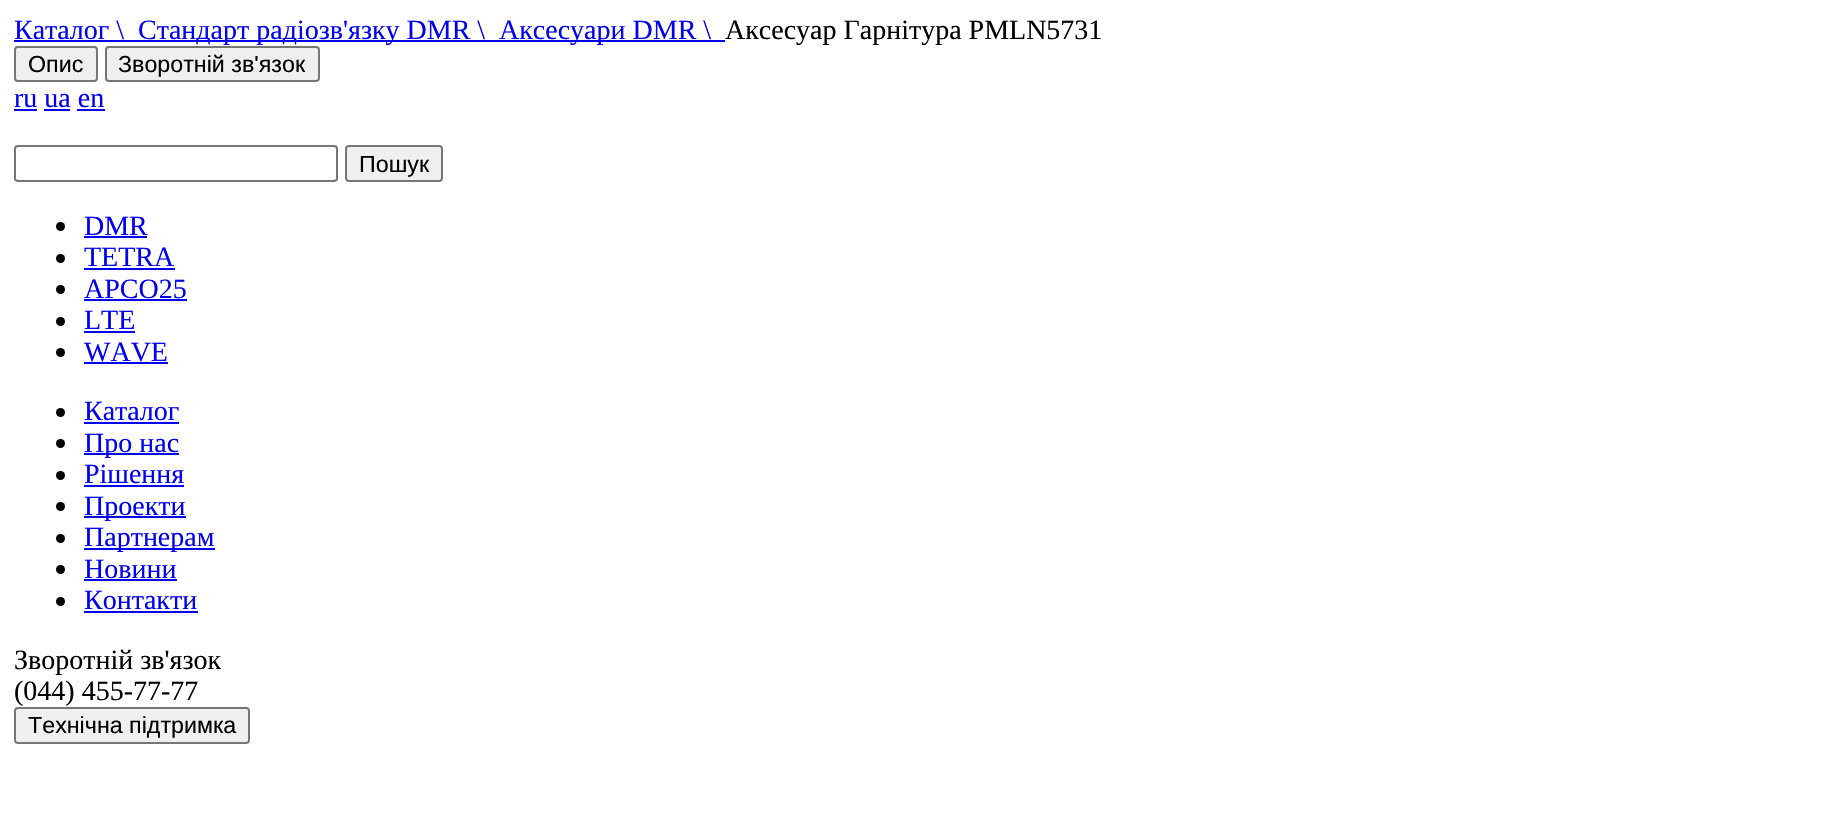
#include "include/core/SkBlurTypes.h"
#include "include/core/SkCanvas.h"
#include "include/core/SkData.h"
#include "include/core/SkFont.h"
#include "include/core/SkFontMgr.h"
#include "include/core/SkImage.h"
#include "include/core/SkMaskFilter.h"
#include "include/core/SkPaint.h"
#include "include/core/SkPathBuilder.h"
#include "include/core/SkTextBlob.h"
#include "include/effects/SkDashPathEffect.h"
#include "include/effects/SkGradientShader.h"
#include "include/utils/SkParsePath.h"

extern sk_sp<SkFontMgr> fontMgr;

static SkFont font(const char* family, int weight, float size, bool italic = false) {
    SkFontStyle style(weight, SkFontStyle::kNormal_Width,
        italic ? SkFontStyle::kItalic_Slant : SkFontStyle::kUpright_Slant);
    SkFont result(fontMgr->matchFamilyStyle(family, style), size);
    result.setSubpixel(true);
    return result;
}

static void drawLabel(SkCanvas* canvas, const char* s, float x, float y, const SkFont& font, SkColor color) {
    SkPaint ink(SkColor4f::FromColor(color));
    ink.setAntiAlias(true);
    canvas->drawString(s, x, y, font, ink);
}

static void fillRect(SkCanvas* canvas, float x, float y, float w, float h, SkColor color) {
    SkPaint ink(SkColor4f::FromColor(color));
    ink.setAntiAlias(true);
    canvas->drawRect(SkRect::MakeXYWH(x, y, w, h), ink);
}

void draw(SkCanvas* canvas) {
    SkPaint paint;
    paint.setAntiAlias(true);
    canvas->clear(0xFFFFFFFF);
    SkFont font1 = font("Liberation Serif", 400, 28);
    drawLabel(canvas, "Каталог \\", 14, 39, font1, 0xFF0000EE);
    fillRect(canvas, 14, 40, 711, 2, 0xFF0000EE);
    drawLabel(canvas, "Стандарт радіозв'язку DMR \\", 138, 39, font1, 0xFF0000EE);
    drawLabel(canvas, "Аксесуари DMR \\", 499, 39, font1, 0xFF0000EE);
    drawLabel(canvas, "Аксесуар Гарнітура PMLN5731", 725, 39, font1, 0xFF000000);
    paint.setColor(0xFFEFEFEF);
    canvas->drawRoundRect(SkRect::MakeXYWH(15, 47, 82, 34), 3, 3, paint);
    paint.setStroke(true);
    paint.setStrokeWidth(2);
    paint.setColor(0xFF767676);
    canvas->drawRoundRect(SkRect::MakeXYWH(15, 47, 82, 34), 3, 3, paint);
    SkFont font2 = font("Liberation Sans", 400, 23.25f);
    drawLabel(canvas, "Опис", 28, 72, font2, 0xFF000000);
    paint.setStroke(false);
    paint.setColor(0xFFEFEFEF);
    canvas->drawRoundRect(SkRect::MakeXYWH(106, 47, 213, 34), 3, 3, paint);
    paint.setStroke(true);
    paint.setColor(0xFF767676);
    canvas->drawRoundRect(SkRect::MakeXYWH(106, 47, 213, 34), 3, 3, paint);
    drawLabel(canvas, "Зворотній зв'язок", 118, 72, font2, 0xFF000000);
    drawLabel(canvas, "ru ua en", 14, 107, font1, 0xFF0000EE);
    fillRect(canvas, 14, 109, 23, 2, 0xFF0000EE);
    fillRect(canvas, 44, 109, 26, 2, 0xFF0000EE);
    fillRect(canvas, 77, 109, 28, 2, 0xFF0000EE);
    canvas->drawRoundRect(SkRect::MakeXYWH(15, 146, 322, 35), 3, 3, paint);
    paint.setStroke(false);
    paint.setColor(0xFFEFEFEF);
    canvas->drawRoundRect(SkRect::MakeXYWH(346, 146, 96, 35), 3, 3, paint);
    paint.setStroke(true);
    paint.setColor(0xFF767676);
    canvas->drawRoundRect(SkRect::MakeXYWH(346, 146, 96, 35), 3, 3, paint);
    drawLabel(canvas, "Пошук", 359, 172, font2, 0xFF000000);
    paint.setStroke(false);
    paint.setColor(0xFF000000);
    canvas->drawCircle(60.5f, 226.5f, 4.5f, paint);
    drawLabel(canvas, "DMR", 84, 235, font1, 0xFF0000EE);
    fillRect(canvas, 84, 236, 63, 2, 0xFF0000EE);
    canvas->drawCircle(60.5f, 258.5f, 4.5f, paint);
    drawLabel(canvas, "TETRA", 84, 266, font1, 0xFF0000EE);
    fillRect(canvas, 84, 268, 91, 2, 0xFF0000EE);
    canvas->drawCircle(60.5f, 289.5f, 4.5f, paint);
    drawLabel(canvas, "APCO25", 84, 298, font1, 0xFF0000EE);
    fillRect(canvas, 84, 299, 103, 2, 0xFF0000EE);
    canvas->drawCircle(60.5f, 321.5f, 4.5f, paint);
    drawLabel(canvas, "LTE", 84, 329, font1, 0xFF0000EE);
    fillRect(canvas, 84, 331, 51, 2, 0xFF0000EE);
    canvas->drawCircle(60.5f, 352.5f, 4.5f, paint);
    drawLabel(canvas, "WAVE", 84, 361, font1, 0xFF0000EE);
    fillRect(canvas, 84, 362, 84, 2, 0xFF0000EE);
    canvas->drawCircle(60.5f, 412.5f, 4.5f, paint);
    drawLabel(canvas, "Каталог", 84, 420, font1, 0xFF0000EE);
    fillRect(canvas, 84, 422, 95, 2, 0xFF0000EE);
    canvas->drawCircle(60.5f, 443.5f, 4.5f, paint);
    fillRect(canvas, 84, 453, 95, 2, 0xFF0000EE);
    drawLabel(canvas, "Про нас", 84, 452, font1, 0xFF0000EE);
    canvas->drawCircle(60.5f, 475.5f, 4.5f, paint);
    drawLabel(canvas, "Рішення", 84, 483, font1, 0xFF0000EE);
    fillRect(canvas, 84, 485, 100, 2, 0xFF0000EE);
    canvas->drawCircle(60.5f, 506.5f, 4.5f, paint);
    fillRect(canvas, 84, 516, 102, 2, 0xFF0000EE);
    drawLabel(canvas, "Проекти", 84, 515, font1, 0xFF0000EE);
    canvas->drawCircle(60.5f, 538.5f, 4.5f, paint);
    fillRect(canvas, 84, 548, 131, 2, 0xFF0000EE);
    drawLabel(canvas, "Партнерам", 84, 546, font1, 0xFF0000EE);
    canvas->drawCircle(60.5f, 569.5f, 4.5f, paint);
    drawLabel(canvas, "Новини", 84, 578, font1, 0xFF0000EE);
    fillRect(canvas, 84, 579, 93, 2, 0xFF0000EE);
    canvas->drawCircle(60.5f, 601.5f, 4.5f, paint);
    drawLabel(canvas, "Контакти", 84, 609, font1, 0xFF0000EE);
    fillRect(canvas, 84, 611, 114, 2, 0xFF0000EE);
    drawLabel(canvas, "Зворотній зв'язок", 14, 669, font1, 0xFF000000);
    drawLabel(canvas, "(044) 455-77-77", 14, 700, font1, 0xFF000000);
    paint.setColor(0xFFEFEFEF);
    canvas->drawRoundRect(SkRect::MakeXYWH(15, 708, 234, 35), 3, 3, paint);
    paint.setStroke(true);
    paint.setColor(0xFF767676);
    canvas->drawRoundRect(SkRect::MakeXYWH(15, 708, 234, 35), 3, 3, paint);
    drawLabel(canvas, "Технічна підтримка", 28, 733, font2, 0xFF000000);
}
